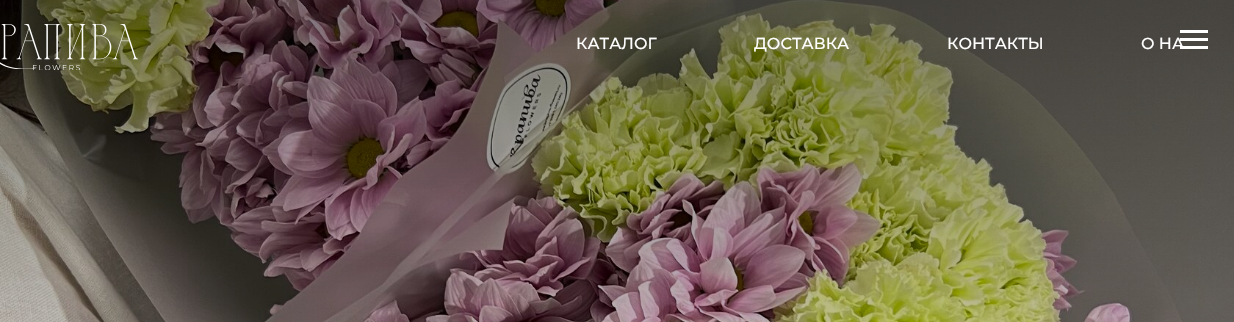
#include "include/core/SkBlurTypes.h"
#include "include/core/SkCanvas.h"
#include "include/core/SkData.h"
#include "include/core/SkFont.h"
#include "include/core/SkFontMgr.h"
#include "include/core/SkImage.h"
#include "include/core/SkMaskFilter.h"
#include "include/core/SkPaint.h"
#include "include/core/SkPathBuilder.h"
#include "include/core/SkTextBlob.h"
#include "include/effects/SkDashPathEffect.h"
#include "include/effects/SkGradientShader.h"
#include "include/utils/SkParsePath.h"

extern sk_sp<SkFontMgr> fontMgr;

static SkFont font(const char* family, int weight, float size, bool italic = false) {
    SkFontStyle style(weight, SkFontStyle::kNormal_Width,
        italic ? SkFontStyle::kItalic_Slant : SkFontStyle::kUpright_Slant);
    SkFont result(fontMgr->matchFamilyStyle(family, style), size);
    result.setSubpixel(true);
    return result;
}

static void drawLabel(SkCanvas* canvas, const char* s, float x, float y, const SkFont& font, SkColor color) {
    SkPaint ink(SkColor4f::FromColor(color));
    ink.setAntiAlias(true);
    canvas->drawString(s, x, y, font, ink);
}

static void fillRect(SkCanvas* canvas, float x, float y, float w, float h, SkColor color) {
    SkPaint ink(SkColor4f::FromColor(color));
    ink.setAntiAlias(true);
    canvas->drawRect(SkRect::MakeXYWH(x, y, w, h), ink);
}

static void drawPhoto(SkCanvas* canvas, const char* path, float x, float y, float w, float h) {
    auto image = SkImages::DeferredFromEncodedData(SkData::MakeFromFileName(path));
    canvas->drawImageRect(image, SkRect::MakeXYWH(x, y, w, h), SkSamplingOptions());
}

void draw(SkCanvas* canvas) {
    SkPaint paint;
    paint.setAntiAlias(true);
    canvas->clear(0xFFFFFFFF);
    drawPhoto(canvas, "assets/img1.png", 0, 0, 1234, 322);
    drawPhoto(canvas, "assets/img3.png", 0, 62, 5, 3);
    drawPhoto(canvas, "assets/img4.png", 33, 65, 47, 5);
    drawPhoto(canvas, "assets/img2.png", 0, 24, 138, 45);
    SkFont font1 = font("Montserrat", 500, 16);
    drawLabel(canvas, "КАТАЛОГ", 576, 49, font1, 0xFFFFFFFF);
    drawLabel(canvas, "ДОСТАВКА", 754, 49, font1, 0xFFFFFFFF);
    drawLabel(canvas, "КОНТАКТЫ", 947, 49, font1, 0xFFFFFFFF);
    drawLabel(canvas, "О НА", 1141, 49, font1, 0xFFFFFFFF);
    fillRect(canvas, 1180, 30, 28, 3, 0xFFFFFFFF);
    fillRect(canvas, 1180, 38, 28, 3, 0xFFFFFFFF);
    fillRect(canvas, 1180, 46, 28, 3, 0xFFFFFFFF);
}
